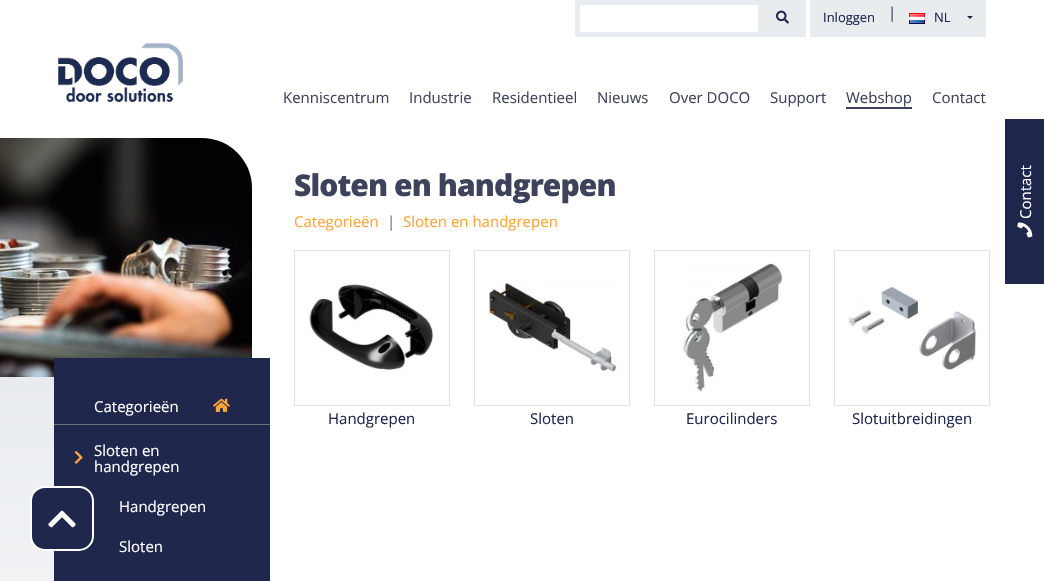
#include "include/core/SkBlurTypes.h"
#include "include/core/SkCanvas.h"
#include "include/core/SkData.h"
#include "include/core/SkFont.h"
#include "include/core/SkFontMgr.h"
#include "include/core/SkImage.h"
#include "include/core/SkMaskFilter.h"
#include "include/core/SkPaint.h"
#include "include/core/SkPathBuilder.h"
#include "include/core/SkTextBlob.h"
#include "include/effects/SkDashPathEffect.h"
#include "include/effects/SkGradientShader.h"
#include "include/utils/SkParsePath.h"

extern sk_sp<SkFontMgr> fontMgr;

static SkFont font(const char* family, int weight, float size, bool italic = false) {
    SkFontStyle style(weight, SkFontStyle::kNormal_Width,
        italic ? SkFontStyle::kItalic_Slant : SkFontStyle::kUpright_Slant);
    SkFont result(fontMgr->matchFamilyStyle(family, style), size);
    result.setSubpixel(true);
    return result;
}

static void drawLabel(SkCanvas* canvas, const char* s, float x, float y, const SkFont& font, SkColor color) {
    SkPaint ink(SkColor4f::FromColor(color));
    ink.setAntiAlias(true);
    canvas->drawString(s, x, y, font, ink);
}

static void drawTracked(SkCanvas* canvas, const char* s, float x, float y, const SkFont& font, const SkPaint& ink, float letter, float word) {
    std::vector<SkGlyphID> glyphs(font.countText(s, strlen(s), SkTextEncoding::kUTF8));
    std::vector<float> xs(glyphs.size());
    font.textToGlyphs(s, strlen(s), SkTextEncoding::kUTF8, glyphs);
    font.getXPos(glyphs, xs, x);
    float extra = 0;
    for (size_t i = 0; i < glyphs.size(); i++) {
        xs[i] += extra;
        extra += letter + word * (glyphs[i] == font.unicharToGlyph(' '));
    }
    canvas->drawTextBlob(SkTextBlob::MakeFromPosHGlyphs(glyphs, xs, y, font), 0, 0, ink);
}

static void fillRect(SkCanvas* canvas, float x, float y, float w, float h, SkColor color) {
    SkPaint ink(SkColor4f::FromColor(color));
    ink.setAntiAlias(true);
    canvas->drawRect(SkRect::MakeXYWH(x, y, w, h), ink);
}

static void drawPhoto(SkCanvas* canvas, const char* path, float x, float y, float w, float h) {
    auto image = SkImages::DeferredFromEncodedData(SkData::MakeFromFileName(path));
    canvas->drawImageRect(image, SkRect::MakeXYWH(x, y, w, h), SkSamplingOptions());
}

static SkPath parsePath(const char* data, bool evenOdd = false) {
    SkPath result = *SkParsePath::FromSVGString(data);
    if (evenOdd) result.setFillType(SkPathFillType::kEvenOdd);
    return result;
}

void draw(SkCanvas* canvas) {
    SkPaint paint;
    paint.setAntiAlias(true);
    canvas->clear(0xFFFFFFFF);
    fillRect(canvas, 763, 0, 43, 37, 0xFFE9ECEF);
    paint.setStroke(true);
    paint.setStrokeWidth(5);
    paint.setColor(0xFFE9ECEF);
    canvas->drawRect(SkRect::MakeXYWH(577.5f, 2.5f, 183, 32), paint);
    drawPhoto(canvas, "assets/img1.png", 776, 10, 13, 14);
    fillRect(canvas, 810, 0, 176, 37, 0xFFE9ECEF);
    SkFont font1 = font("Open Sans", 400, 13);
    drawLabel(canvas, "Inloggen", 823, 22, font1, 0xFF1F274D);
    SkFont font2 = font("Open Sans", 400, 15);
    drawLabel(canvas, "|", 888, 18, font2, 0xFF3E435B);
    drawPhoto(canvas, "assets/img2.png", 909, 13, 16, 11);
    drawLabel(canvas, "NL", 934, 22, font1, 0xFF1F274D);
    paint.setStroke(false);
    paint.setColor(0xFF1F274D);
    canvas->drawPath(parsePath("M967 16H973L970 19Z"), paint);
    drawPhoto(canvas, "assets/img3.png", 58, 42, 125, 60);
    drawLabel(canvas, "Kenniscentrum", 283, 103, font2, 0xFF3E435B);
    drawLabel(canvas, "Industrie", 409, 103, font2, 0xFF3E435B);
    drawLabel(canvas, "Residentieel", 492, 103, font2, 0xFF3E435B);
    drawLabel(canvas, "Nieuws", 597, 103, font2, 0xFF3E435B);
    drawLabel(canvas, "Over DOCO", 669, 103, font2, 0xFF3E435B);
    drawLabel(canvas, "Support", 770, 103, font2, 0xFF3E435B);
    drawLabel(canvas, "Webshop", 846, 103, font2, 0xFF3E435B);
    fillRect(canvas, 846, 107, 66, 2, 0xFF3E435B);
    drawLabel(canvas, "Contact", 932, 103, font2, 0xFF3E435B);
    {
        const SkColor colors[] = {0xFFE9ECEF, 0xFFFFFFFF};
        const float stops[] = {0, 0.91f};
        const SkPoint ends[] = {{52, 377}, {52, 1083}};
        paint.setShader(SkGradientShader::MakeLinear(ends, colors, stops, 2, SkTileMode::kClamp));
        paint.setAlpha(255);
    }
    canvas->drawRect(SkRect::MakeXYWH(0, 377, 54, 204), paint);
    drawPhoto(canvas, "assets/img9.png", 0, 138, 252, 239);
    fillRect(canvas, 54, 358, 216, 223, 0xFF1F274D);
    paint.setShader(nullptr);
    paint.setColor(0xFF1F274D);
    canvas->drawRoundRect(SkRect::MakeXYWH(31, 487, 62, 63), 14, 14, paint);
    paint.setStroke(true);
    paint.setStrokeWidth(2);
    paint.setColor(0xFFFFFFFF);
    canvas->drawRoundRect(SkRect::MakeXYWH(31, 487, 62, 63), 14, 14, paint);
    drawPhoto(canvas, "assets/img4.png", 48, 510, 28, 18);
    SkFont font3 = font("Open Sans", 800, 30);
    paint.setStroke(false);
    paint.setColor(0xFF3E435B);
    drawTracked(canvas, "Sloten en handgrepen", 294, 196, font3, paint, -0.9f, 0);
    drawLabel(canvas, "Categorieën", 294, 227, font2, 0xFFFFA438);
    drawLabel(canvas, "|", 387, 227, font2, 0xFF6E7284);
    drawLabel(canvas, "Sloten en handgrepen", 403, 227, font2, 0xFFFFA438);
    paint.setStroke(true);
    paint.setStrokeWidth(1);
    paint.setColor(0xFFDEE2E6);
    canvas->drawRect(SkRect::MakeXYWH(294.5f, 250.5f, 155, 155), paint);
    drawPhoto(canvas, "assets/img5.png", 309, 284, 124, 86);
    drawLabel(canvas, "Handgrepen", 328, 424, font2, 0xFF1F274D);
    canvas->drawRect(SkRect::MakeXYWH(474.5f, 250.5f, 155, 155), paint);
    drawPhoto(canvas, "assets/img6.png", 489, 282, 128, 90);
    drawLabel(canvas, "Sloten", 530, 424, font2, 0xFF1F274D);
    canvas->drawRect(SkRect::MakeXYWH(654.5f, 250.5f, 155, 155), paint);
    drawPhoto(canvas, "assets/img7.png", 683, 262, 100, 130);
    drawLabel(canvas, "Eurocilinders", 686, 424, font2, 0xFF1F274D);
    canvas->drawRect(SkRect::MakeXYWH(834.5f, 250.5f, 155, 155), paint);
    drawPhoto(canvas, "assets/img8.png", 848, 285, 129, 85);
    drawLabel(canvas, "Slotuitbreidingen", 852, 424, font2, 0xFF1F274D);
    fillRect(canvas, 54, 424, 216, 1, 0xFF6C757D);
    drawLabel(canvas, "Categorieën", 94, 412, font2, 0xFFFFFFFF);
    drawPhoto(canvas, "assets/img10.png", 213, 398, 17, 14);
    drawPhoto(canvas, "assets/img11.png", 74, 451, 9, 13);
    drawLabel(canvas, "Sloten en", 94, 456, font2, 0xFFFFFFFF);
    drawLabel(canvas, "handgrepen", 94, 472, font2, 0xFFFFFFFF);
    drawLabel(canvas, "Handgrepen", 119, 512, font2, 0xFFFFFFFF);
    drawLabel(canvas, "Sloten", 119, 552, font2, 0xFFFFFFFF);
    fillRect(canvas, 1005, 119, 39, 165, 0xFF1F274D);
    canvas->save();
    canvas->rotate(-90, 1031, 219);
    drawLabel(canvas, "Contact", 1031, 219, font2, 0xFFFFFFFF);
    canvas->restore();
    drawPhoto(canvas, "assets/img12.png", 1017, 222, 16, 16);
}
